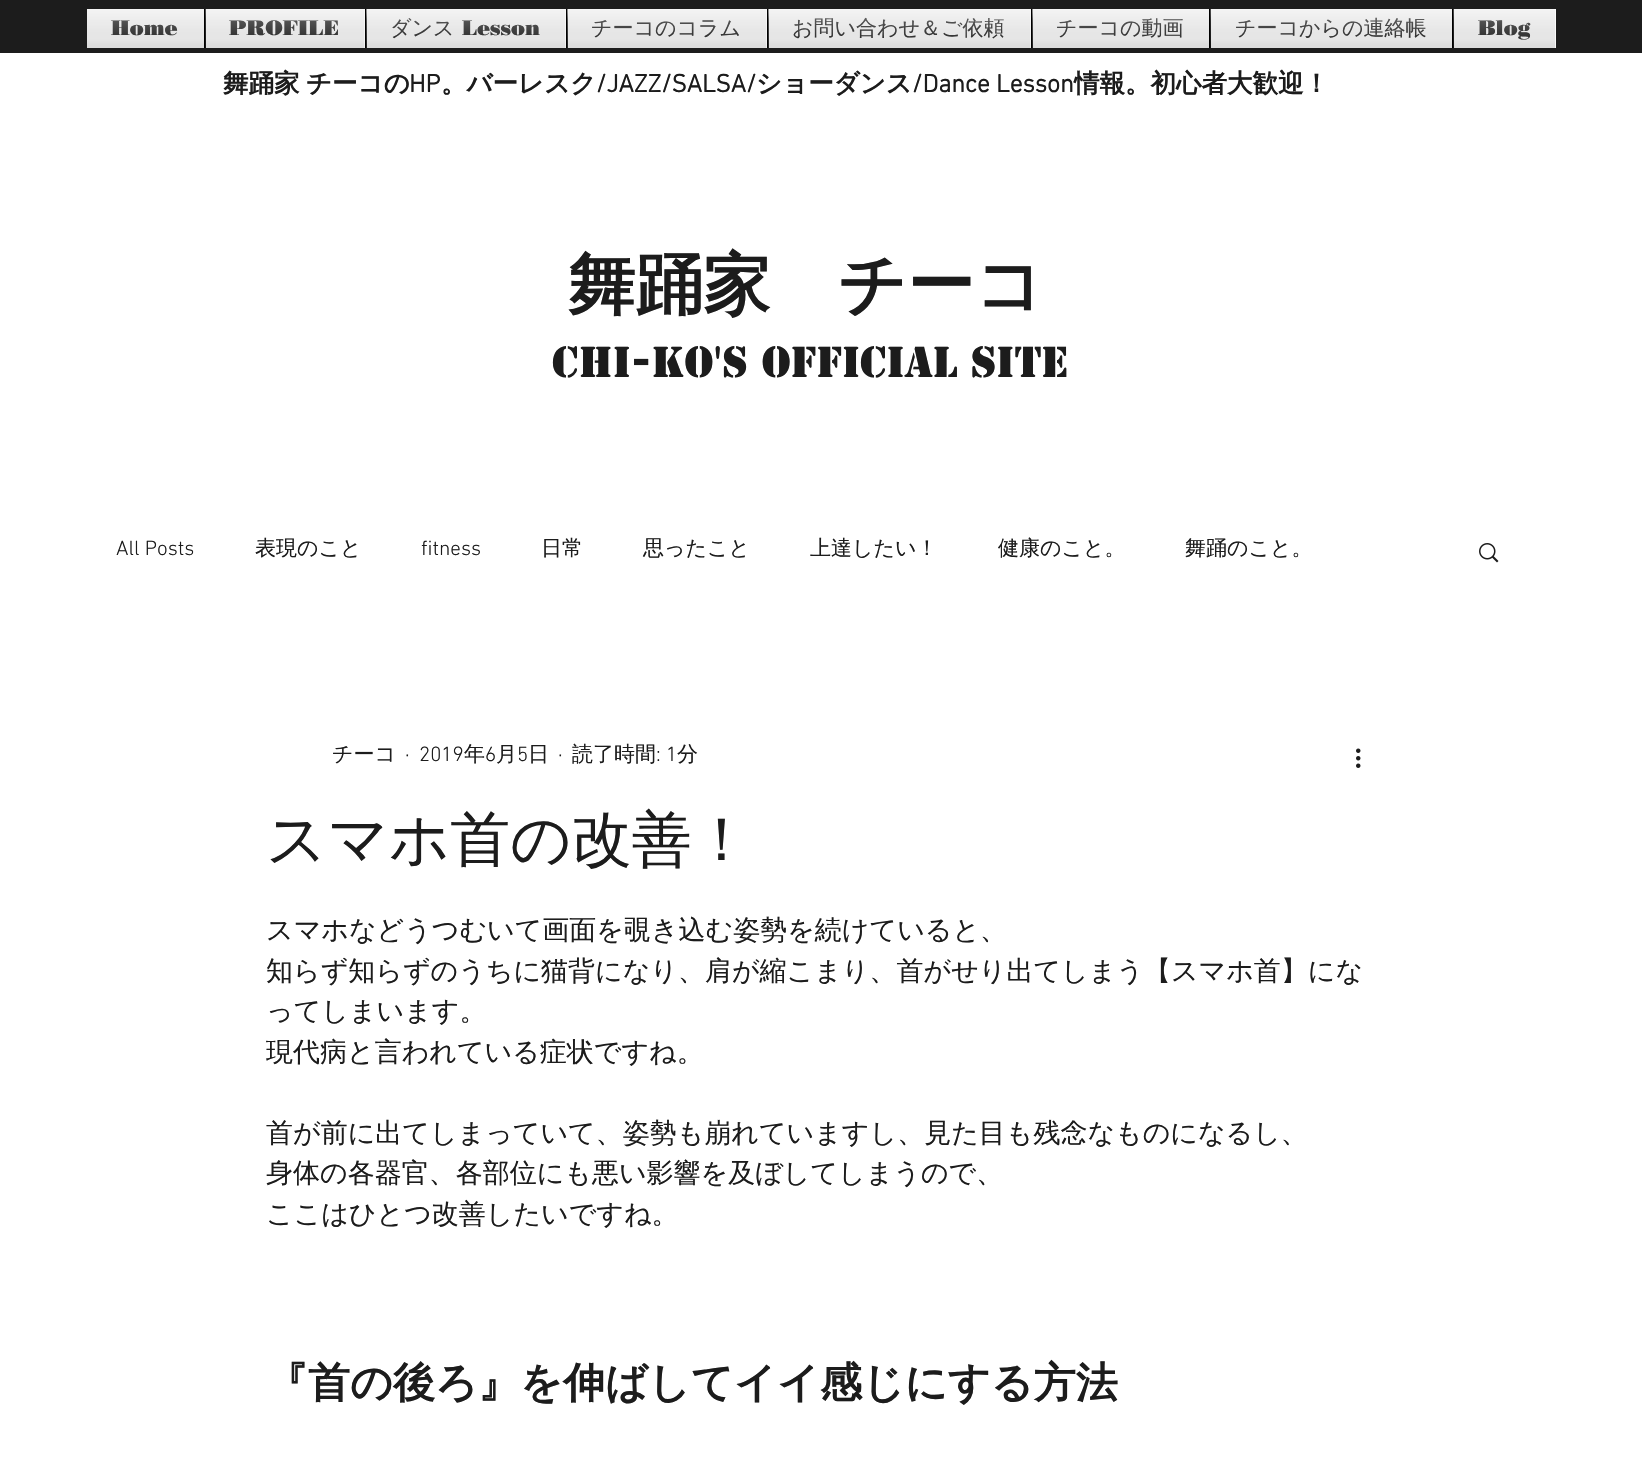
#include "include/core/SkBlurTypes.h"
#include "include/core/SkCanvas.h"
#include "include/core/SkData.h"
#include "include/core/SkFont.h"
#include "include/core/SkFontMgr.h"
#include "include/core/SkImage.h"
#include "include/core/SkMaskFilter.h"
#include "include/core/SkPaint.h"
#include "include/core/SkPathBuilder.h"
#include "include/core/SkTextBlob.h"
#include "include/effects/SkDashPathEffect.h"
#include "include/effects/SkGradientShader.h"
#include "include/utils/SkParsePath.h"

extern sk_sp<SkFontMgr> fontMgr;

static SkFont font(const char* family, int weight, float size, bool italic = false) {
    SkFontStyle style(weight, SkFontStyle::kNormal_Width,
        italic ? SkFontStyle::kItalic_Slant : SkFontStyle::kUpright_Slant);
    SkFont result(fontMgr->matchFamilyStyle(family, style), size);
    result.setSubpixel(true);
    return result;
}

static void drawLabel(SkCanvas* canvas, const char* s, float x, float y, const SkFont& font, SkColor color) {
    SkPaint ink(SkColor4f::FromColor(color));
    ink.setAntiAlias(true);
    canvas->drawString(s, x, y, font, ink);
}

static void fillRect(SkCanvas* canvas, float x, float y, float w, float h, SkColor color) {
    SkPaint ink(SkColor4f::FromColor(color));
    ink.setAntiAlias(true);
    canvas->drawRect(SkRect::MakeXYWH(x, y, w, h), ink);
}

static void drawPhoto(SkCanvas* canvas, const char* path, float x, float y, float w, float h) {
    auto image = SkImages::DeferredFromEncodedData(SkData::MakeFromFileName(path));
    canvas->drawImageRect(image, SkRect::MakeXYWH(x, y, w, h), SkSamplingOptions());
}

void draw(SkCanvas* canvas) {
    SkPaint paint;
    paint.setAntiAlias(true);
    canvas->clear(0xFFFFFFFF);
    fillRect(canvas, 0, 0, 1642, 53, 0xFF1C1C1C);
    fillRect(canvas, 87, 9, 117, 39, 0xFFFFFFFF);
    SkFont font1 = font("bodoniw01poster", 900, 21);
    drawLabel(canvas, "Home", 111, 35, font1, 0xFF000000);
    drawPhoto(canvas, "assets/img1.png", 111, 20, 67, 16);
    drawPhoto(canvas, "assets/img2.png", 87, 9, 117, 39);
    fillRect(canvas, 206, 9, 159, 39, 0xFFFFFFFF);
    fillRect(canvas, 204, 9, 2, 39, 0xFF000000);
    drawLabel(canvas, "PROFILE", 229, 35, font1, 0xFF000000);
    drawPhoto(canvas, "assets/img3.png", 205, 9, 134, 39);
    drawPhoto(canvas, "assets/img4.png", 206, 9, 159, 39);
    fillRect(canvas, 367, 9, 199, 39, 0xFFFFFFFF);
    fillRect(canvas, 365, 9, 2, 39, 0xFF000000);
    SkFont font2 = font("WenQuanYi Zen Hei", 500, 21);
    drawLabel(canvas, "ダンス", 390, 35, font2, 0xFF000000);
    drawLabel(canvas, "Lesson", 462, 35, font1, 0xFF000000);
    drawPhoto(canvas, "assets/img5.png", 366, 9, 174, 39);
    drawPhoto(canvas, "assets/img6.png", 366, 9, 200, 39);
    fillRect(canvas, 568, 9, 199, 39, 0xFFFFFFFF);
    fillRect(canvas, 566, 9, 2, 39, 0xFF000000);
    drawLabel(canvas, "チーコのコラム", 591, 35, font2, 0xFF000000);
    drawPhoto(canvas, "assets/img7.png", 567, 9, 172, 39);
    drawPhoto(canvas, "assets/img8.png", 567, 9, 200, 39);
    fillRect(canvas, 769, 9, 262, 39, 0xFFFFFFFF);
    fillRect(canvas, 767, 9, 2, 39, 0xFF000000);
    drawLabel(canvas, "お問い合わせ＆ご依頼", 792, 35, font2, 0xFF000000);
    drawPhoto(canvas, "assets/img9.png", 768, 9, 236, 39);
    drawPhoto(canvas, "assets/img10.png", 768, 9, 263, 39);
    fillRect(canvas, 1033, 9, 176, 39, 0xFFFFFFFF);
    fillRect(canvas, 1031, 9, 2, 39, 0xFF000000);
    drawLabel(canvas, "チーコの動画", 1056, 35, font2, 0xFF000000);
    drawPhoto(canvas, "assets/img11.png", 1032, 9, 151, 39);
    drawPhoto(canvas, "assets/img12.png", 1032, 9, 177, 39);
    fillRect(canvas, 1211, 9, 241, 39, 0xFFFFFFFF);
    fillRect(canvas, 1209, 9, 2, 39, 0xFF000000);
    drawLabel(canvas, "チーコからの連絡帳", 1235, 35, font2, 0xFF000000);
    drawPhoto(canvas, "assets/img13.png", 1210, 9, 215, 39);
    drawPhoto(canvas, "assets/img14.png", 1211, 9, 241, 39);
    fillRect(canvas, 1454, 9, 102, 39, 0xFFFFFFFF);
    fillRect(canvas, 1452, 9, 2, 39, 0xFF000000);
    drawLabel(canvas, "Blog", 1478, 35, font1, 0xFF000000);
    drawPhoto(canvas, "assets/img15.png", 1453, 9, 77, 39);
    drawPhoto(canvas, "assets/img16.png", 1454, 9, 102, 39);
    SkFont font3 = font("WenQuanYi Zen Hei", 700, 25.5f);
    drawLabel(canvas, "舞踊家", 223, 92, font3, 0xFF1C1C1C);
    drawLabel(canvas, "チーコの", 306, 92, font3, 0xFF1C1C1C);
    SkFont font4 = font("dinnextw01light", 700, 25.5f);
    drawLabel(canvas, "HP", 409, 92, font4, 0xFF1C1C1C);
    drawLabel(canvas, "。バーレスク", 441, 92, font3, 0xFF1C1C1C);
    drawLabel(canvas, "/JAZZ/SALSA/", 596, 92, font4, 0xFF1C1C1C);
    drawLabel(canvas, "ショーダンス", 756, 92, font3, 0xFF1C1C1C);
    drawLabel(canvas, "/Dance Lesson", 912, 92, font4, 0xFF1C1C1C);
    drawLabel(canvas, "情報。初心者大歓迎！", 1074, 92, font3, 0xFF1C1C1C);
    SkFont font5 = font("WenQuanYi Zen Hei", 700, 67.5f);
    drawLabel(canvas, "舞踊家　チーコ", 568, 308, font5, 0xFF1C1C1C);
    SkFont font6 = font("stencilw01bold", 700, 40.5f);
    drawLabel(canvas, "Chi-ko's Official site", 552, 377, font6, 0xFF1C1C1C);
    SkFont font7 = font("dinnextw01light", 300, 21);
    drawLabel(canvas, "All Posts", 116, 555, font7, 0xFF1C1C1C);
    drawLabel(canvas, "表現のこと", 255, 555, font2, 0xFF1C1C1C);
    drawLabel(canvas, "fitness", 421, 555, font7, 0xFF1C1C1C);
    drawLabel(canvas, "日常", 541, 555, font2, 0xFF1C1C1C);
    drawLabel(canvas, "思ったこと", 643, 555, font2, 0xFF1C1C1C);
    drawLabel(canvas, "上達したい！", 810, 555, font2, 0xFF1C1C1C);
    drawLabel(canvas, "健康のこと。", 998, 555, font2, 0xFF1C1C1C);
    drawLabel(canvas, "舞踊のこと。", 1185, 555, font2, 0xFF1C1C1C);
    drawPhoto(canvas, "assets/img17.png", 1479, 543, 20, 20);
    drawLabel(canvas, "チーコ", 332, 761, font2, 0xFF1C1C1C);
    drawLabel(canvas, "·", 405, 761, font7, 0xFF1C1C1C);
    drawLabel(canvas, "2019", 419, 761, font7, 0xFF1C1C1C);
    drawLabel(canvas, "年", 464, 761, font2, 0xFF1C1C1C);
    drawLabel(canvas, "6", 485, 761, font7, 0xFF1C1C1C);
    drawLabel(canvas, "月", 496, 761, font2, 0xFF1C1C1C);
    drawLabel(canvas, "5", 517, 761, font7, 0xFF1C1C1C);
    drawLabel(canvas, "日", 528, 761, font2, 0xFF1C1C1C);
    drawLabel(canvas, "·", 558, 761, font7, 0xFF1C1C1C);
    drawLabel(canvas, "読了時間", 572, 761, font2, 0xFF1C1C1C);
    drawLabel(canvas, ": 1", 656, 761, font7, 0xFF1C1C1C);
    drawLabel(canvas, "分", 677, 761, font2, 0xFF1C1C1C);
    drawPhoto(canvas, "assets/img18.png", 1356, 748, 5, 20);
    SkFont font8 = font("WenQuanYi Zen Hei", 500, 60);
    drawLabel(canvas, "スマホ首の改善！", 266, 860, font8, 0xFF1C1C1C);
    SkFont font9 = font("WenQuanYi Zen Hei", 500, 27);
    drawLabel(canvas, "スマホなどうつむいて画面を覗き込む姿勢を続けていると、", 266, 939, font9, 0xFF1C1C1C);
    drawLabel(canvas, "知らず知らずのうちに猫背になり、肩が縮こまり、首がせり出てしまう【スマホ首】にな", 266, 980, font9, 0xFF1C1C1C);
    drawLabel(canvas, "ってしまいます。", 266, 1020, font9, 0xFF1C1C1C);
    drawLabel(canvas, "現代病と言われている症状ですね。", 266, 1061, font9, 0xFF1C1C1C);
    drawLabel(canvas, "首が前に出てしまっていて、姿勢も崩れていますし、見た目も残念なものになるし、", 266, 1142, font9, 0xFF1C1C1C);
    drawLabel(canvas, "身体の各器官、各部位にも悪い影響を及ぼしてしまうので、", 266, 1182, font9, 0xFF1C1C1C);
    drawLabel(canvas, "ここはひとつ改善したいですね。", 266, 1223, font9, 0xFF1C1C1C);
    SkFont font10 = font("WenQuanYi Zen Hei", 700, 42);
    drawLabel(canvas, "『首の後ろ』を伸ばしてイイ感じにする方法", 266, 1397, font10, 0xFF1C1C1C);
}
